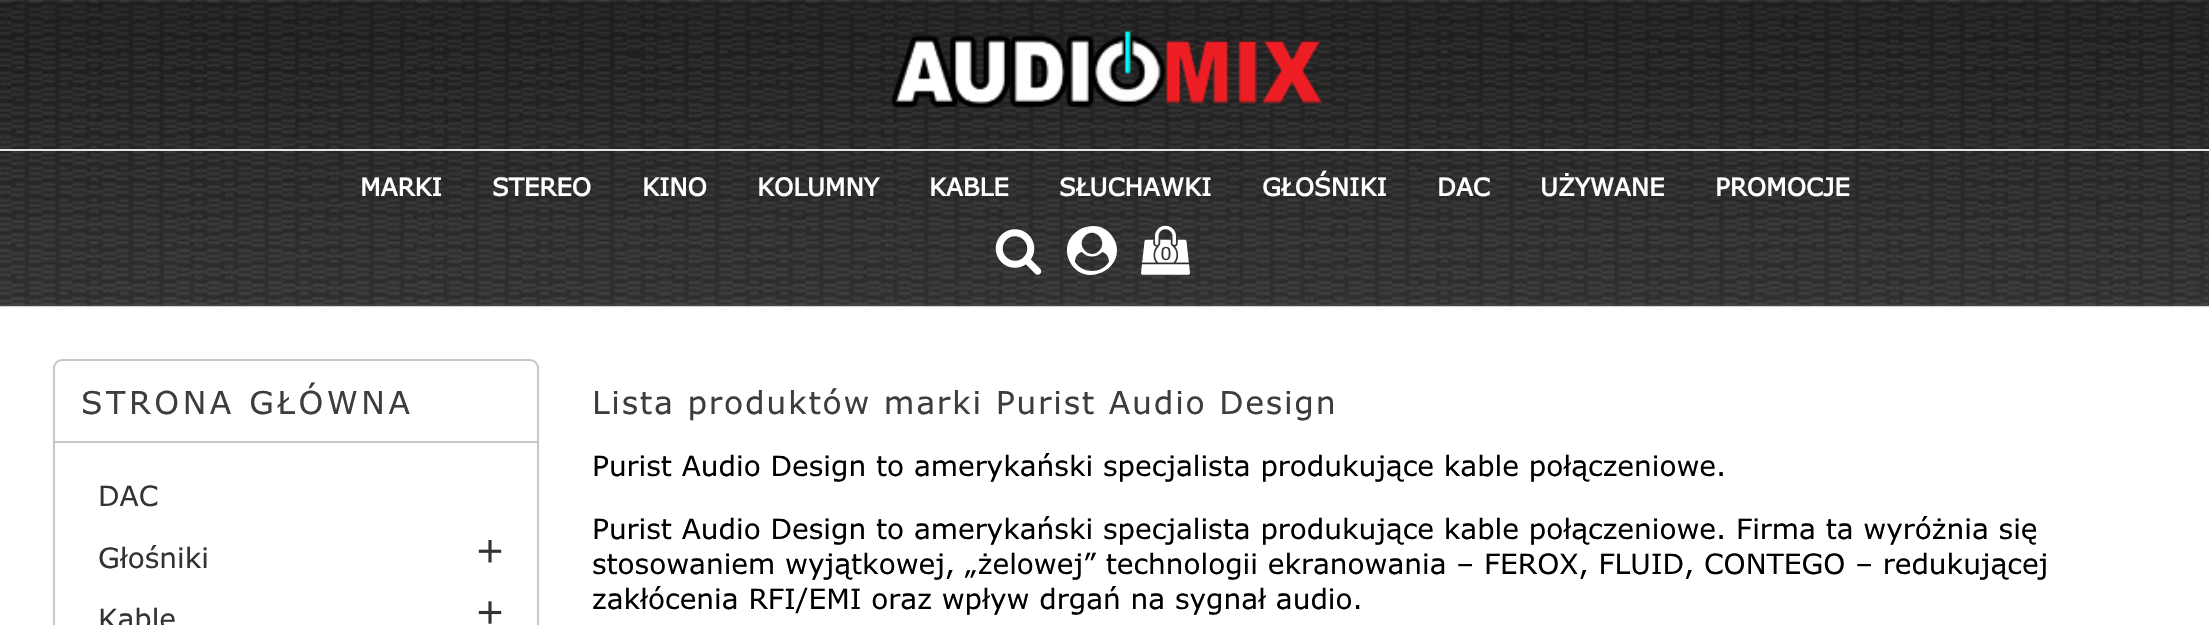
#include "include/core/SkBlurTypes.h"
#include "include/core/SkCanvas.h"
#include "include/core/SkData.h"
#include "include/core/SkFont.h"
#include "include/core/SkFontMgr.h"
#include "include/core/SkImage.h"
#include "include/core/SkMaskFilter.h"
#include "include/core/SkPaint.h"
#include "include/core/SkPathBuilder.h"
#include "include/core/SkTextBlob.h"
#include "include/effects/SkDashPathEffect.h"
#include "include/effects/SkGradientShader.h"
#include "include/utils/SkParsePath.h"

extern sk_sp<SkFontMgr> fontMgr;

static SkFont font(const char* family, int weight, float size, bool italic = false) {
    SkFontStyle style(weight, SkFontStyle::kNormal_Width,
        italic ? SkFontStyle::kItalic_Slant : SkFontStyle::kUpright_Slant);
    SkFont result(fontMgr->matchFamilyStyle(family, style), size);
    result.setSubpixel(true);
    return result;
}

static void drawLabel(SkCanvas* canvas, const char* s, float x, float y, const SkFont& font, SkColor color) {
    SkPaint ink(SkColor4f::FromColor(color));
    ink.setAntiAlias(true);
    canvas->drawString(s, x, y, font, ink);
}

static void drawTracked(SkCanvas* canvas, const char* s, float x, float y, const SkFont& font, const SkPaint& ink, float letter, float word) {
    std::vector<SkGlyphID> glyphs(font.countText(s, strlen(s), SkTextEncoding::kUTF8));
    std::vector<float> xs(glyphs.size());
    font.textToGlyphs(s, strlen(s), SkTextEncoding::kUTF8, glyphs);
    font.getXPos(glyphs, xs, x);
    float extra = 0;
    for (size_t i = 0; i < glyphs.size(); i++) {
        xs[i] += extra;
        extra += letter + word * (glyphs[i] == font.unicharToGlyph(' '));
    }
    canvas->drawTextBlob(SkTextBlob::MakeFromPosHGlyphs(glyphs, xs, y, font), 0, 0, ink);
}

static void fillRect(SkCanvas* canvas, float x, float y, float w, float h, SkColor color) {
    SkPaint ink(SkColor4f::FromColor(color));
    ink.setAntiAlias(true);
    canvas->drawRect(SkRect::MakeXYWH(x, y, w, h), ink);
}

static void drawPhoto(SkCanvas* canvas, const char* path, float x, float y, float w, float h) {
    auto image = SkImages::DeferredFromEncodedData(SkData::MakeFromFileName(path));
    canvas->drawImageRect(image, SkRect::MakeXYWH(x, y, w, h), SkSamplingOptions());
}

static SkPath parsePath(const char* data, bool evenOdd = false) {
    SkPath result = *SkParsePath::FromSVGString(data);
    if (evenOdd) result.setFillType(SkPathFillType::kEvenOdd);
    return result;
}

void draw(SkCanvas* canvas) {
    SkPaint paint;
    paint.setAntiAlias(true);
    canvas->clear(0xFFFFFFFF);
    drawPhoto(canvas, "assets/img1.png", 0, 0, 2209, 307);
    drawPhoto(canvas, "assets/img2.png", 890, 31, 432, 78);
    fillRect(canvas, 0, 149, 2209, 2, 0xFFE5E5E5);
    SkFont font1 = font("Verdana", 700, 24.5f);
    drawLabel(canvas, "MARKI", 360, 196, font1, 0xFFFFFFFF);
    drawLabel(canvas, "STEREO", 492, 196, font1, 0xFFFFFFFF);
    drawLabel(canvas, "KINO", 642, 196, font1, 0xFFFFFFFF);
    drawLabel(canvas, "KOLUMNY", 757, 196, font1, 0xFFFFFFFF);
    drawLabel(canvas, "KABLE", 929, 196, font1, 0xFFFFFFFF);
    drawLabel(canvas, "SŁUCHAWKI", 1059, 196, font1, 0xFFFFFFFF);
    drawLabel(canvas, "GŁOŚNIKI", 1262, 196, font1, 0xFFFFFFFF);
    drawLabel(canvas, "DAC", 1437, 196, font1, 0xFFFFFFFF);
    drawLabel(canvas, "UŻYWANE", 1540, 196, font1, 0xFFFFFFFF);
    drawLabel(canvas, "PROMOCJE", 1715, 196, font1, 0xFFFFFFFF);
    drawPhoto(canvas, "assets/img3.png", 995, 229, 47, 46);
    paint.setColor(0xFFFFFFFF);
    canvas->drawPath(parsePath("M1109 262C1109 258 1107 253 1102 252C1097 258 1087 258 1082 252C1077 253 1075 258 1075 262C1083 274 1101 274 1109 262ZM1099 251C1109 241 1094 226 1085 236C1075 246 1090 260 1099 251ZM1115 241C1127 270 1082 290 1069 260C1057 230 1102 211 1115 241Z"), paint);
    drawPhoto(canvas, "assets/img4.png", 1141, 225, 49, 50);
    SkFont font2 = font("Verdana", 400, 18);
    drawLabel(canvas, "(0)", 1152, 260, font2, 0xFF333333);
    paint.setStroke(true);
    paint.setStrokeWidth(2);
    paint.setColor(0xFFC7C7C7);
    canvas->drawRoundRect(SkRect::MakeXYWH(54, 360, 484, 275), 8, 8, paint);
    fillRect(canvas, 54, 441, 483, 2, 0xFFC7C7C7);
    SkFont font3 = font("Verdana", 400, 31.5f);
    paint.setStroke(false);
    paint.setColor(0xFF3D3D3D);
    drawTracked(canvas, "STRONA GŁÓWNA", 81, 414, font3, paint, 3.5f, 0);
    SkFont font4 = font("Verdana", 400, 28);
    drawLabel(canvas, "DAC", 98, 506, font4, 0xFF333333);
    drawLabel(canvas, "Głośniki", 98, 568, font4, 0xFF333333);
    drawPhoto(canvas, "assets/img5.png", 478, 540, 24, 23);
    drawLabel(canvas, "Kable", 98, 629, font4, 0xFF333333);
    drawPhoto(canvas, "assets/img6.png", 478, 601, 24, 23);
    drawTracked(canvas, "Lista produktów marki Purist Audio Design", 592, 414, font3, paint, 1.75f, 0);
    drawLabel(canvas, "Purist Audio Design to amerykański specjalista produkujące kable połączeniowe.", 592, 476, font4, 0xFF000000);
    drawLabel(canvas, "Purist Audio Design to amerykański specjalista produkujące kable połączeniowe. Firma ta wyróżnia się", 592, 539, font4, 0xFF000000);
    drawLabel(canvas, "stosowaniem wyjątkowej, „żelowej” technologii ekranowania – FEROX, FLUID, CONTEGO – redukującej", 592, 574, font4, 0xFF000000);
    drawLabel(canvas, "zakłócenia RFI/EMI oraz wpływ drgań na sygnał audio.", 592, 609, font4, 0xFF000000);
}
